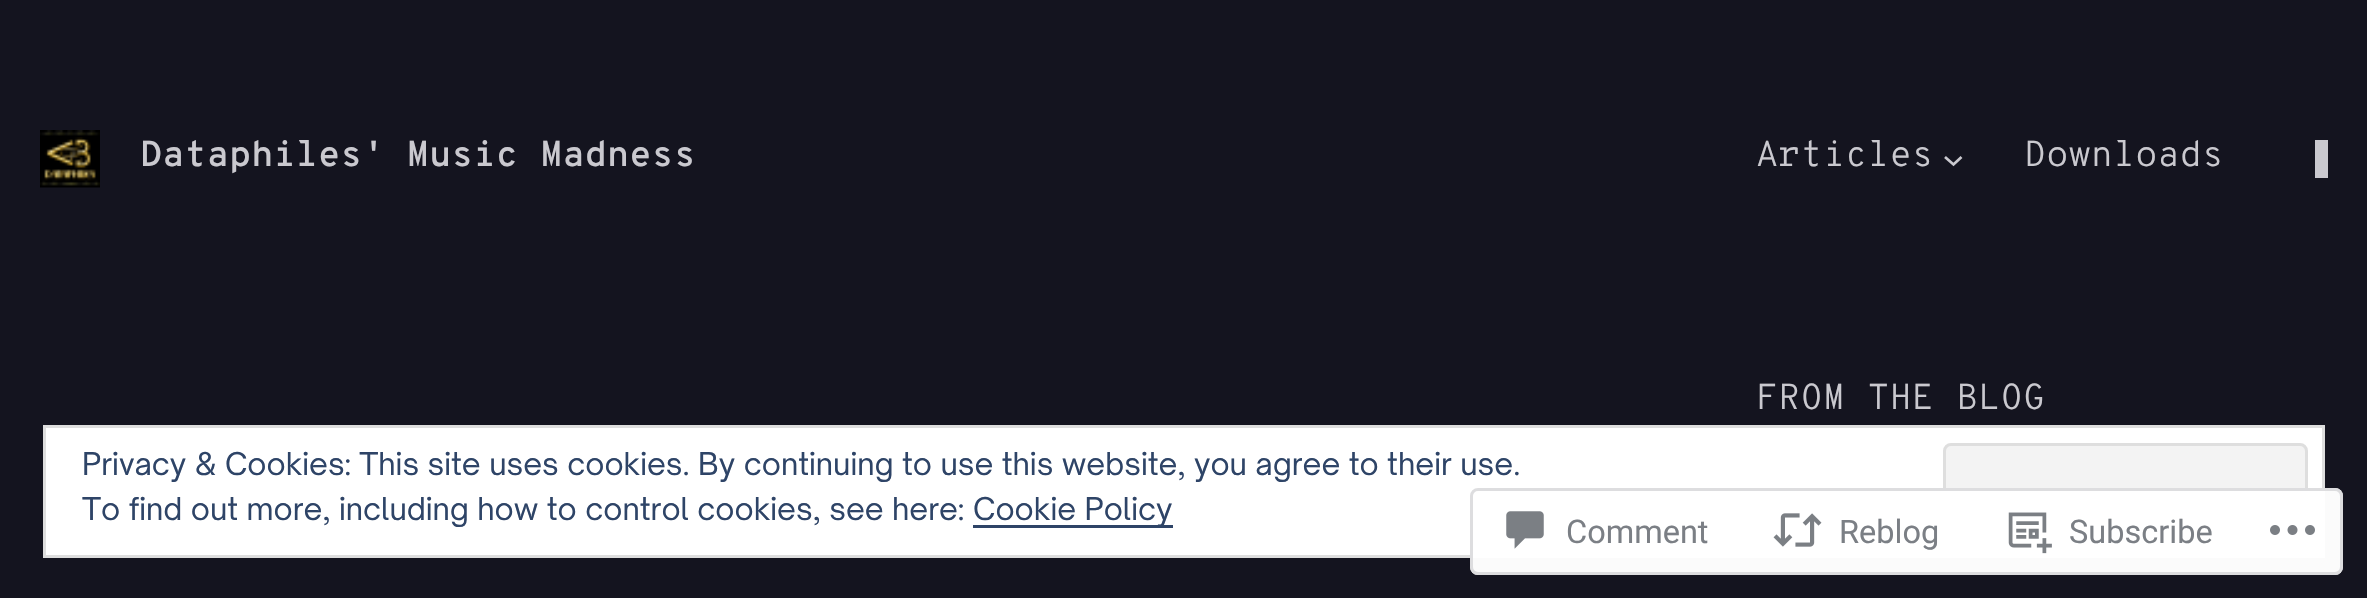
#include "include/core/SkBlurTypes.h"
#include "include/core/SkCanvas.h"
#include "include/core/SkData.h"
#include "include/core/SkFont.h"
#include "include/core/SkFontMgr.h"
#include "include/core/SkImage.h"
#include "include/core/SkMaskFilter.h"
#include "include/core/SkPaint.h"
#include "include/core/SkPathBuilder.h"
#include "include/core/SkTextBlob.h"
#include "include/effects/SkDashPathEffect.h"
#include "include/effects/SkGradientShader.h"
#include "include/utils/SkParsePath.h"

extern sk_sp<SkFontMgr> fontMgr;

static SkFont font(const char* family, int weight, float size, bool italic = false) {
    SkFontStyle style(weight, SkFontStyle::kNormal_Width,
        italic ? SkFontStyle::kItalic_Slant : SkFontStyle::kUpright_Slant);
    SkFont result(fontMgr->matchFamilyStyle(family, style), size);
    result.setSubpixel(true);
    return result;
}

static void drawLabel(SkCanvas* canvas, const char* s, float x, float y, const SkFont& font, SkColor color) {
    SkPaint ink(SkColor4f::FromColor(color));
    ink.setAntiAlias(true);
    canvas->drawString(s, x, y, font, ink);
}

static void fillRect(SkCanvas* canvas, float x, float y, float w, float h, SkColor color) {
    SkPaint ink(SkColor4f::FromColor(color));
    ink.setAntiAlias(true);
    canvas->drawRect(SkRect::MakeXYWH(x, y, w, h), ink);
}

static void fillRRect(SkCanvas* canvas, float x, float y, float w, float h, float radius, SkColor color) {
    SkPaint ink(SkColor4f::FromColor(color));
    ink.setAntiAlias(true);
    canvas->drawRoundRect(SkRect::MakeXYWH(x, y, w, h), radius, radius, ink);
}

static void drawPhoto(SkCanvas* canvas, const char* path, float x, float y, float w, float h) {
    auto image = SkImages::DeferredFromEncodedData(SkData::MakeFromFileName(path));
    canvas->drawImageRect(image, SkRect::MakeXYWH(x, y, w, h), SkSamplingOptions());
}

static SkPath parsePath(const char* data, bool evenOdd = false) {
    SkPath result = *SkParsePath::FromSVGString(data);
    if (evenOdd) result.setFillType(SkPathFillType::kEvenOdd);
    return result;
}

void draw(SkCanvas* canvas) {
    SkPaint paint;
    paint.setAntiAlias(true);
    canvas->clear(0xFF14141F);
    drawPhoto(canvas, "assets/img1.png", 40, 130, 60, 58);
    SkFont font1 = font("Overpass Mono", 600, 36.1f);
    drawLabel(canvas, "Dataphiles' Music Madness", 140, 166, font1, 0xFFCAC9CF);
    fillRect(canvas, 2315, 140, 13, 38, 0xFFCAC9CF);
    SkFont font2 = font("Overpass Mono", 300, 36.1f);
    drawLabel(canvas, "Articles", 1756, 166, font2, 0xFFCAC9CF);
    paint.setStroke(true);
    paint.setStrokeWidth(2.7f);
    paint.setColor(0xFFCAC9CF);
    canvas->drawPath(parsePath("M1945 157L1953.5 164.5L1961.5 157"), paint);
    drawLabel(canvas, "Downloads", 2024, 166, font2, 0xFFCAC9CF);
    drawLabel(canvas, "FROM THE BLOG", 1756, 409, font2, 0xFFCAC9CF);
    paint.setStroke(false);
    paint.setColor(0xFFFFFFFF);
    canvas->drawRect(SkRect::MakeXYWH(44.5f, 426.5f, 2279, 130), paint);
    paint.setStroke(true);
    paint.setStrokeWidth(3);
    paint.setColor(0xFFDEDEDE);
    canvas->drawRect(SkRect::MakeXYWH(44.5f, 426.5f, 2279, 130), paint);
    SkFont font3 = font("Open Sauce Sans", 400, 30);
    drawLabel(canvas, "Privacy & Cookies: This site uses cookies. By continuing to use this website, you agree to their use.", 82, 475, font3, 0xFF2E4467);
    paint.setStroke(false);
    paint.setColor(0xFFF3F3F3);
    canvas->drawRoundRect(SkRect::MakeXYWH(1944.5f, 444.5f, 362, 94), 6.5f, 6.5f, paint);
    paint.setStroke(true);
    paint.setColor(0xFFDEDEDE);
    canvas->drawRoundRect(SkRect::MakeXYWH(1944.5f, 444.5f, 362, 94), 6.5f, 6.5f, paint);
    drawLabel(canvas, "To find out more, including how to control cookies, see here:", 82, 520, font3, 0xFF2E4467);
    fillRect(canvas, 973, 525, 200, 3, 0xFF2E4467);
    drawLabel(canvas, "Cookie Policy", 973, 520, font3, 0xFF2E4467);
    fillRRect(canvas, 1470, 488, 873, 87, 8, 0xFAFFFFFF);
    paint.setColor(0xFADCDCDE);
    canvas->drawRoundRect(SkRect::MakeXYWH(1471.5f, 489.5f, 870, 84), 6.5f, 6.5f, paint);
    drawPhoto(canvas, "assets/img2.png", 1506, 511, 38, 38);
    SkFont font4 = font("Roboto", 400, 32.5f);
    drawLabel(canvas, "Comment", 1566, 543, font4, 0xFF7B7F85);
    drawPhoto(canvas, "assets/img3.png", 1773, 513, 49, 34);
    drawLabel(canvas, "Reblog", 1839, 543, font4, 0xFF7B7F85);
    drawPhoto(canvas, "assets/img4.png", 2008, 512, 44, 42);
    drawLabel(canvas, "Subscribe", 2069, 543, font4, 0xFF7B7F85);
    drawPhoto(canvas, "assets/img5.png", 2270, 525, 45, 10);
}
